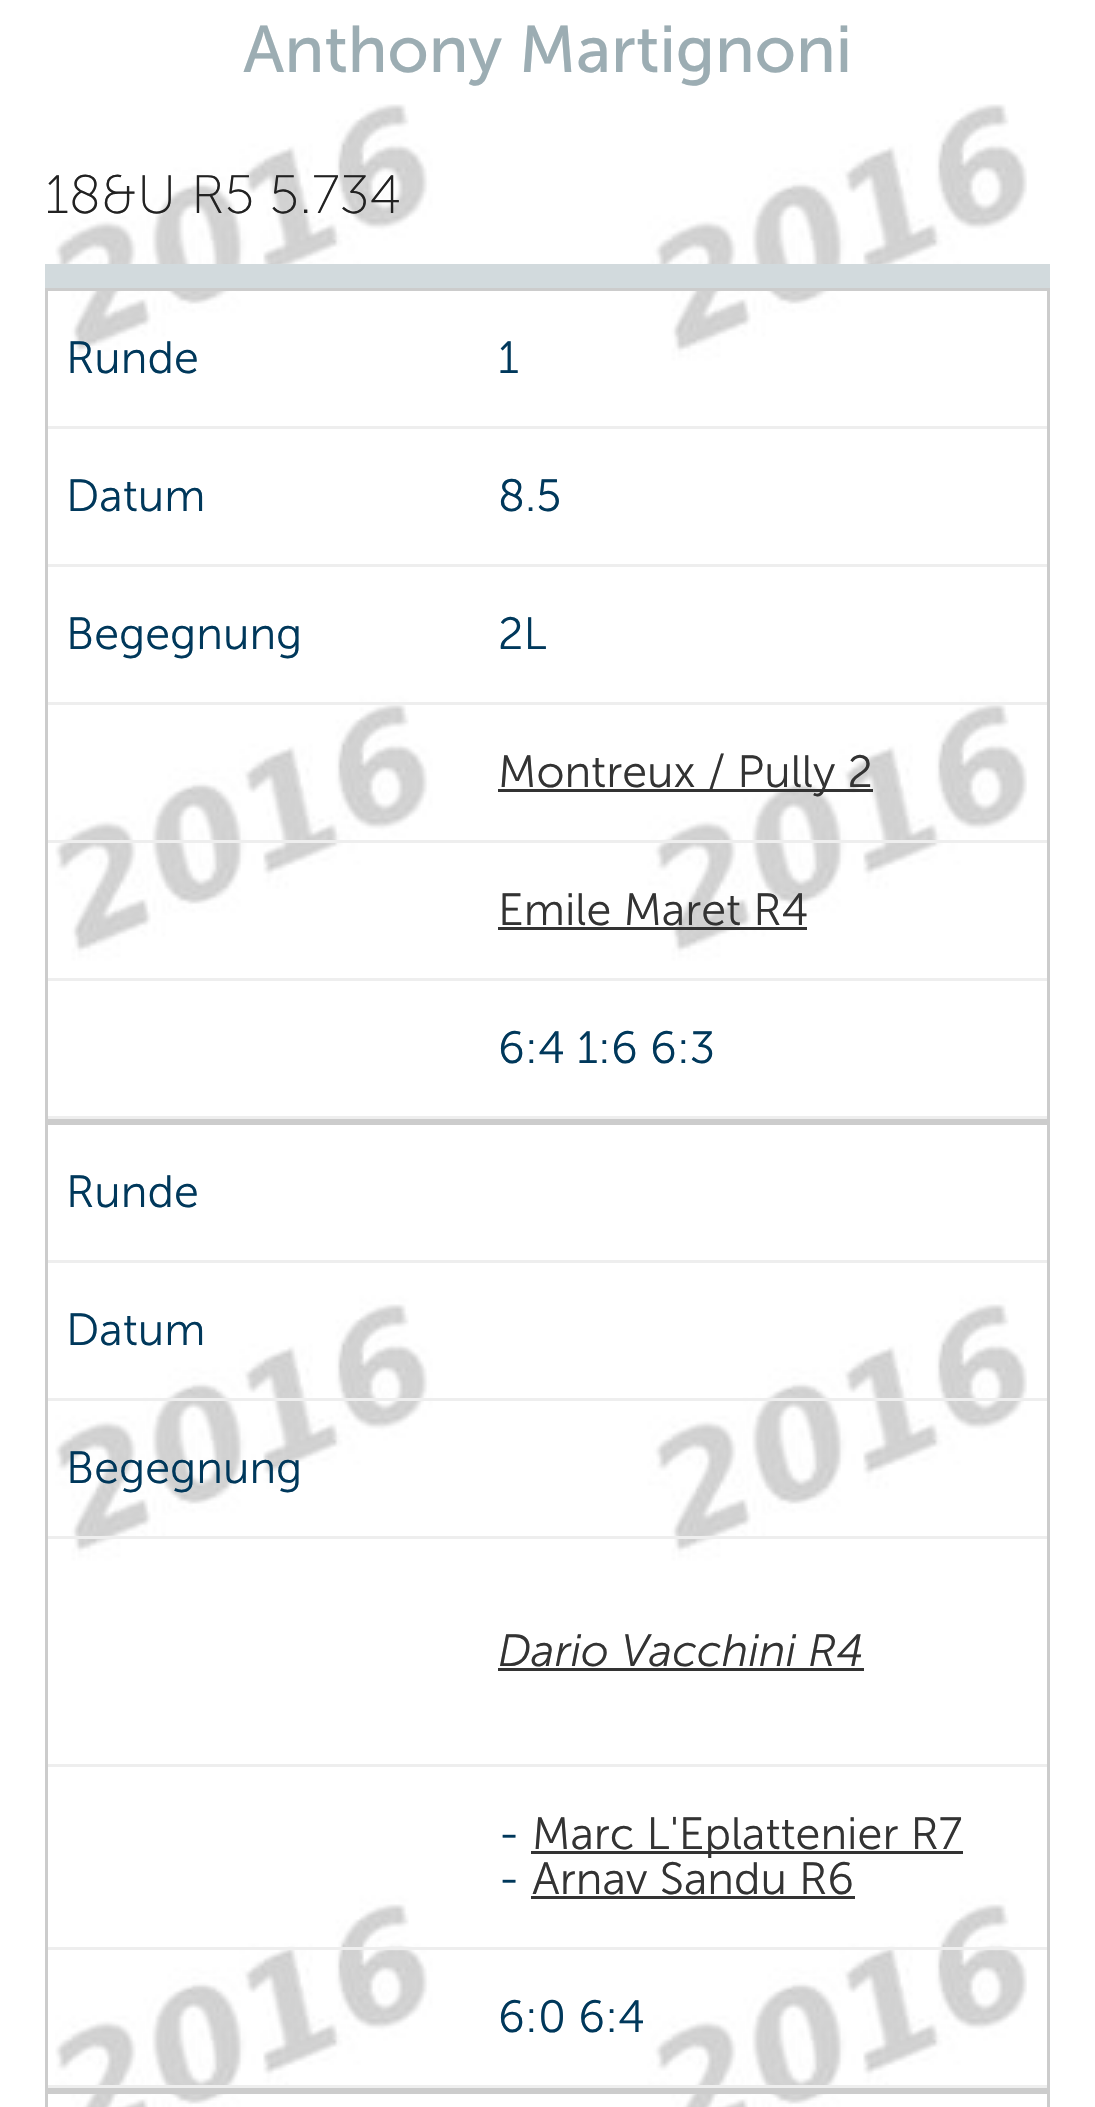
#include "include/core/SkBlurTypes.h"
#include "include/core/SkCanvas.h"
#include "include/core/SkData.h"
#include "include/core/SkFont.h"
#include "include/core/SkFontMgr.h"
#include "include/core/SkImage.h"
#include "include/core/SkMaskFilter.h"
#include "include/core/SkPaint.h"
#include "include/core/SkPathBuilder.h"
#include "include/core/SkTextBlob.h"
#include "include/effects/SkDashPathEffect.h"
#include "include/effects/SkGradientShader.h"
#include "include/utils/SkParsePath.h"

extern sk_sp<SkFontMgr> fontMgr;

static SkFont font(const char* family, int weight, float size, bool italic = false) {
    SkFontStyle style(weight, SkFontStyle::kNormal_Width,
        italic ? SkFontStyle::kItalic_Slant : SkFontStyle::kUpright_Slant);
    SkFont result(fontMgr->matchFamilyStyle(family, style), size);
    result.setSubpixel(true);
    return result;
}

static void drawLabel(SkCanvas* canvas, const char* s, float x, float y, const SkFont& font, SkColor color) {
    SkPaint ink(SkColor4f::FromColor(color));
    ink.setAntiAlias(true);
    canvas->drawString(s, x, y, font, ink);
}

static void fillRect(SkCanvas* canvas, float x, float y, float w, float h, SkColor color) {
    SkPaint ink(SkColor4f::FromColor(color));
    ink.setAntiAlias(true);
    canvas->drawRect(SkRect::MakeXYWH(x, y, w, h), ink);
}

static void drawPhoto(SkCanvas* canvas, const char* path, float x, float y, float w, float h) {
    auto image = SkImages::DeferredFromEncodedData(SkData::MakeFromFileName(path));
    canvas->drawImageRect(image, SkRect::MakeXYWH(x, y, w, h), SkSamplingOptions());
}

void draw(SkCanvas* canvas) {
    SkPaint paint;
    paint.setAntiAlias(true);
    canvas->clear(0xFFFFFFFF);
    drawPhoto(canvas, "assets/img1.png", 55, 104, 972, 2003);
    SkFont font1 = font("Museo Sans", 400, 66);
    drawLabel(canvas, "Anthony Martignoni", 243, 72, font1, 0xFF9CADB3);
    SkFont font2 = font("Museo Sans", 200, 54);
    drawLabel(canvas, "18&U R5 5.734", 45, 213, font2, 0xFF222222);
    fillRect(canvas, 45, 264, 1005, 24, 0xFFD2DADD);
    paint.setStroke(true);
    paint.setStrokeWidth(3);
    paint.setColor(0xFFCCCCCC);
    canvas->drawRect(SkRect::MakeXYWH(46.5f, 289.5f, 1002, 831), paint);
    fillRect(canvas, 48, 426, 999, 3, 0xFFEEEEEE);
    SkFont font3 = font("Museo Sans", 300, 45);
    drawLabel(canvas, "Runde", 66, 373, font3, 0xFF00385B);
    drawLabel(canvas, "1", 498, 373, font3, 0xFF00385B);
    fillRect(canvas, 48, 564, 999, 3, 0xFFEEEEEE);
    drawLabel(canvas, "Datum", 66, 511, font3, 0xFF00385B);
    drawLabel(canvas, "8.5", 498, 511, font3, 0xFF00385B);
    fillRect(canvas, 48, 702, 999, 3, 0xFFEEEEEE);
    drawLabel(canvas, "Begegnung", 66, 649, font3, 0xFF00385B);
    drawLabel(canvas, "2L", 498, 649, font3, 0xFF00385B);
    fillRect(canvas, 48, 840, 999, 3, 0xFFEEEEEE);
    fillRect(canvas, 498, 789, 375, 3, 0xFF333333);
    drawLabel(canvas, "Montreux / Pully 2", 498, 787, font3, 0xFF333333);
    fillRect(canvas, 48, 978, 999, 3, 0xFFEEEEEE);
    drawLabel(canvas, "Emile Maret R4", 498, 925, font3, 0xFF333333);
    fillRect(canvas, 498, 927, 309, 3, 0xFF333333);
    fillRect(canvas, 48, 1116, 999, 3, 0xFFEEEEEE);
    drawLabel(canvas, "6:4 1:6 6:3", 498, 1063, font3, 0xFF00385B);
    canvas->drawRect(SkRect::MakeXYWH(46.5f, 1123.5f, 1002, 966), paint);
    fillRect(canvas, 48, 1260, 999, 3, 0xFFEEEEEE);
    drawLabel(canvas, "Runde", 66, 1207, font3, 0xFF00385B);
    fillRect(canvas, 48, 1398, 999, 3, 0xFFEEEEEE);
    drawLabel(canvas, "Datum", 66, 1345, font3, 0xFF00385B);
    fillRect(canvas, 48, 1536, 999, 3, 0xFFEEEEEE);
    drawLabel(canvas, "Begegnung", 66, 1483, font3, 0xFF00385B);
    fillRect(canvas, 48, 1764, 999, 3, 0xFFEEEEEE);
    SkFont font4 = font("Museo Sans", 300, 45, true);
    drawLabel(canvas, "Dario Vacchini R4", 498, 1666, font4, 0xFF333333);
    fillRect(canvas, 498, 1668, 366, 3, 0xFF333333);
    fillRect(canvas, 48, 1947, 999, 3, 0xFFEEEEEE);
    drawLabel(canvas, "-", 498, 1849, font3, 0xFF00385B);
    fillRect(canvas, 531, 1851, 432, 3, 0xFF333333);
    drawLabel(canvas, "Marc L'Eplattenier R7", 532, 1849, font3, 0xFF333333);
    drawLabel(canvas, "-", 498, 1894, font3, 0xFF00385B);
    drawLabel(canvas, "Arnav Sandu R6", 532, 1894, font3, 0xFF333333);
    fillRect(canvas, 531, 1896, 324, 3, 0xFF333333);
    fillRect(canvas, 48, 2085, 999, 3, 0xFFEEEEEE);
    drawLabel(canvas, "6:0 6:4", 498, 2032, font3, 0xFF00385B);
    canvas->drawRect(SkRect::MakeXYWH(46.5f, 2092.5f, 1002, 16), paint);
}
